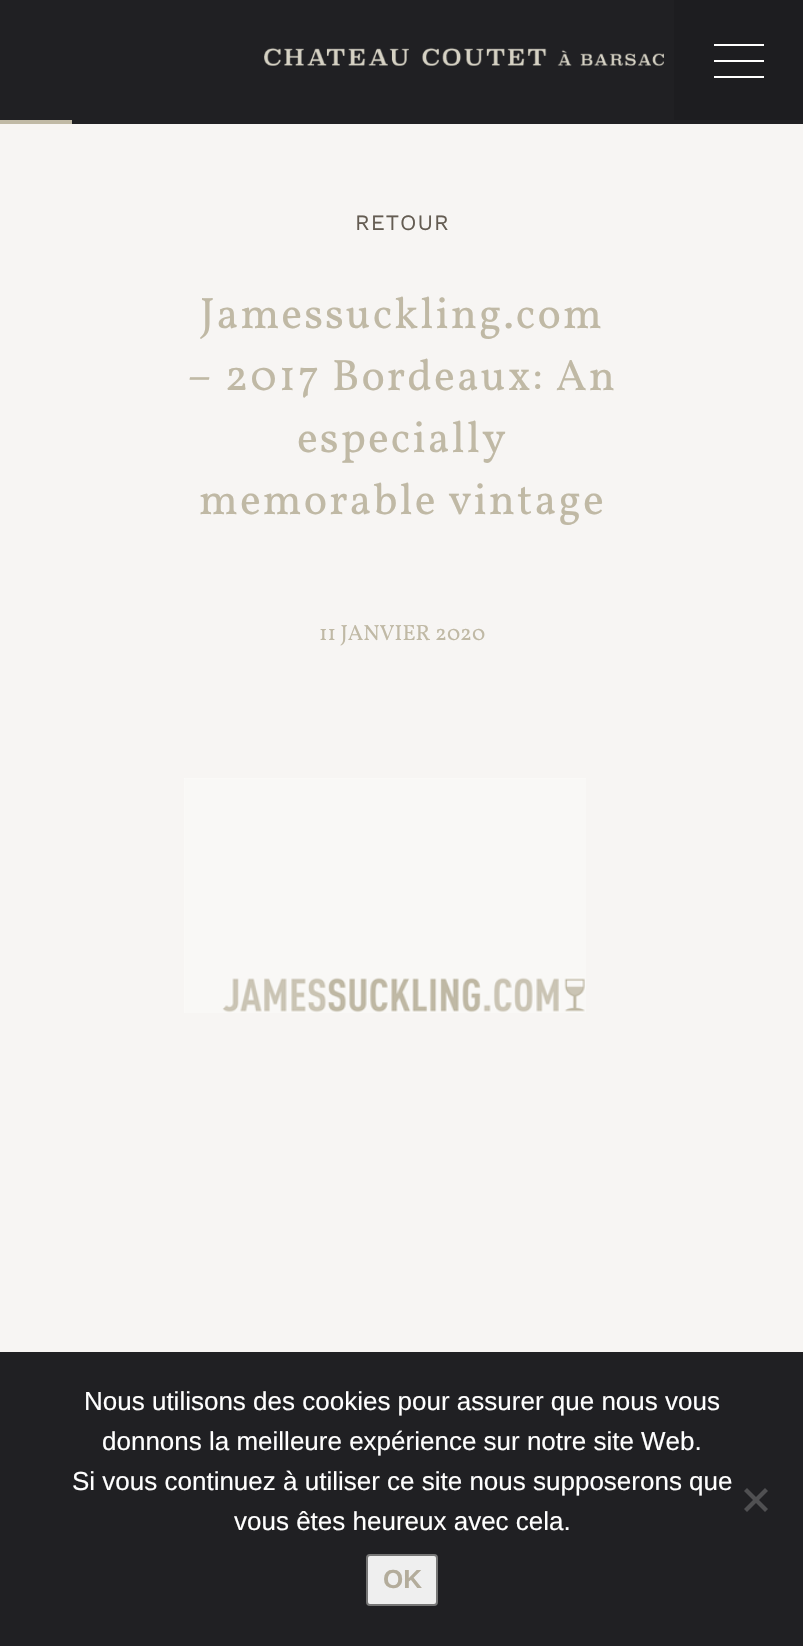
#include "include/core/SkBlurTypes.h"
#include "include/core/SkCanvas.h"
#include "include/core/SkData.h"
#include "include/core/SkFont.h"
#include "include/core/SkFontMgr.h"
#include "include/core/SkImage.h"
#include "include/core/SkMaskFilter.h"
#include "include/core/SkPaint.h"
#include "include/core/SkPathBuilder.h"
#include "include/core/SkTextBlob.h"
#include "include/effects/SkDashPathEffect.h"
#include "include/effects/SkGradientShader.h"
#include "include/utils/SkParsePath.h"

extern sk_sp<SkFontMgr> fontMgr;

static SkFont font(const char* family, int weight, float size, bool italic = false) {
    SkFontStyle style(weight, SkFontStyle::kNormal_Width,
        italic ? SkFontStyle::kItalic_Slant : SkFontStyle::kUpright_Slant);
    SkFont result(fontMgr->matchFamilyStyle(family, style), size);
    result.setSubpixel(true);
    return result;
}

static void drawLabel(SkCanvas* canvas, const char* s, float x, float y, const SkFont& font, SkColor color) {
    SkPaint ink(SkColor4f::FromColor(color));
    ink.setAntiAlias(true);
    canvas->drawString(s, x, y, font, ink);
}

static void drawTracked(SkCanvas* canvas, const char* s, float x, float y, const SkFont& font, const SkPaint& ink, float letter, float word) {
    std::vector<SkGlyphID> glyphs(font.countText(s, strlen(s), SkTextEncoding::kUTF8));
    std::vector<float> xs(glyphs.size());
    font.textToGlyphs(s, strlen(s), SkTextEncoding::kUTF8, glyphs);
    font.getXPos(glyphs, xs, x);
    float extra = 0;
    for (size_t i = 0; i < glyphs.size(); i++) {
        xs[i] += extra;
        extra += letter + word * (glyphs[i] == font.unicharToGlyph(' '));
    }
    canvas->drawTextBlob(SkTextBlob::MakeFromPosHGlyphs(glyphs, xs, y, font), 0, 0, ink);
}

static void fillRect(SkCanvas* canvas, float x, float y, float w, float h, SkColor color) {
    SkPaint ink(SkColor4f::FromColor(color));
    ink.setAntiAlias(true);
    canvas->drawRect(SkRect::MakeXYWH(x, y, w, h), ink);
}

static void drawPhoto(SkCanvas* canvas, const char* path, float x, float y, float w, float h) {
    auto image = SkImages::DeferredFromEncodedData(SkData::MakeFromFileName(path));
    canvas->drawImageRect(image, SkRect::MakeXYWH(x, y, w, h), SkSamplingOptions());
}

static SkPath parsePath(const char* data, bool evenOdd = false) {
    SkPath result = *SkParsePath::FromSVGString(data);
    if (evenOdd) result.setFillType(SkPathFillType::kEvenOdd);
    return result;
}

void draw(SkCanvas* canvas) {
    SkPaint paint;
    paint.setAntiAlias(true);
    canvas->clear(0xFFF7F5F3);
    fillRect(canvas, 0, 0, 674, 120, 0xFF202023);
    drawPhoto(canvas, "assets/img1.png", 264, 47, 400, 19);
    fillRect(canvas, 674, 0, 129, 120, 0xFF1D1D20);
    fillRect(canvas, 714, 60, 50, 2, 0xFFFFFFFF);
    fillRect(canvas, 714, 44, 50, 2, 0xFFFFFFFF);
    fillRect(canvas, 714, 76, 50, 2, 0xFFFFFFFF);
    fillRect(canvas, 72, 120, 731, 4, 0xFF202023);
    fillRect(canvas, 0, 120, 72, 4, 0xFFC0B9A5);
    SkFont font1 = font("Work Sans", 400, 22);
    paint.setColor(0xFF645C52);
    drawTracked(canvas, "RETOUR", 355, 230, font1, paint, 1, 0);
    SkFont font2 = font("Vollkorn", 400, 44);
    paint.setColor(0xFFC0B9A5);
    drawTracked(canvas, "Jamessuckling.com", 200, 328, font2, paint, 2, 0);
    drawTracked(canvas, "– 2017 Bordeaux: An", 187, 390, font2, paint, 2, 0);
    drawTracked(canvas, "especially", 297, 452, font2, paint, 2, 0);
    drawTracked(canvas, "memorable vintage", 199, 514, font2, paint, 2, 0);
    SkFont font3 = font("Vollkorn", 400, 22);
    drawLabel(canvas, "11 JANVIER 2020", 319, 640, font3, 0xFFC0B9A5);
    drawPhoto(canvas, "assets/img2.png", 184, 778, 402, 235);
    fillRect(canvas, 0, 1352, 803, 294, 0xFF202023);
    SkFont font4 = font("Liberation Sans", 400, 26);
    drawLabel(canvas, "Nous utilisons des cookies pour assurer que nous vous", 84, 1410, font4, 0xFFFFFFFF);
    drawLabel(canvas, "donnons la meilleure expérience sur notre site Web.", 102, 1450, font4, 0xFFFFFFFF);
    drawLabel(canvas, "Si vous continuez à utiliser ce site nous supposerons que", 72, 1490, font4, 0xFFFFFFFF);
    drawLabel(canvas, "vous êtes heureux avec cela.", 234, 1530, font4, 0xFFFFFFFF);
    paint.setColor(0xFF505052);
    canvas->drawPath(parsePath("M765 1488L768 1491L747 1512L744 1509Z"), paint);
    canvas->drawPath(parsePath("M744 1491L747 1488L768 1509L765 1512Z"), paint);
    paint.setColor(0xFFEFEFEF);
    canvas->drawRoundRect(SkRect::MakeXYWH(367, 1555, 70, 50), 3, 3, paint);
    paint.setStroke(true);
    paint.setStrokeWidth(2);
    paint.setColor(0xFF767676);
    canvas->drawRoundRect(SkRect::MakeXYWH(367, 1555, 70, 50), 3, 3, paint);
    SkFont font5 = font("Liberation Sans", 700, 26);
    drawLabel(canvas, "OK", 383, 1588, font5, 0xFFB3AC9B);
}
